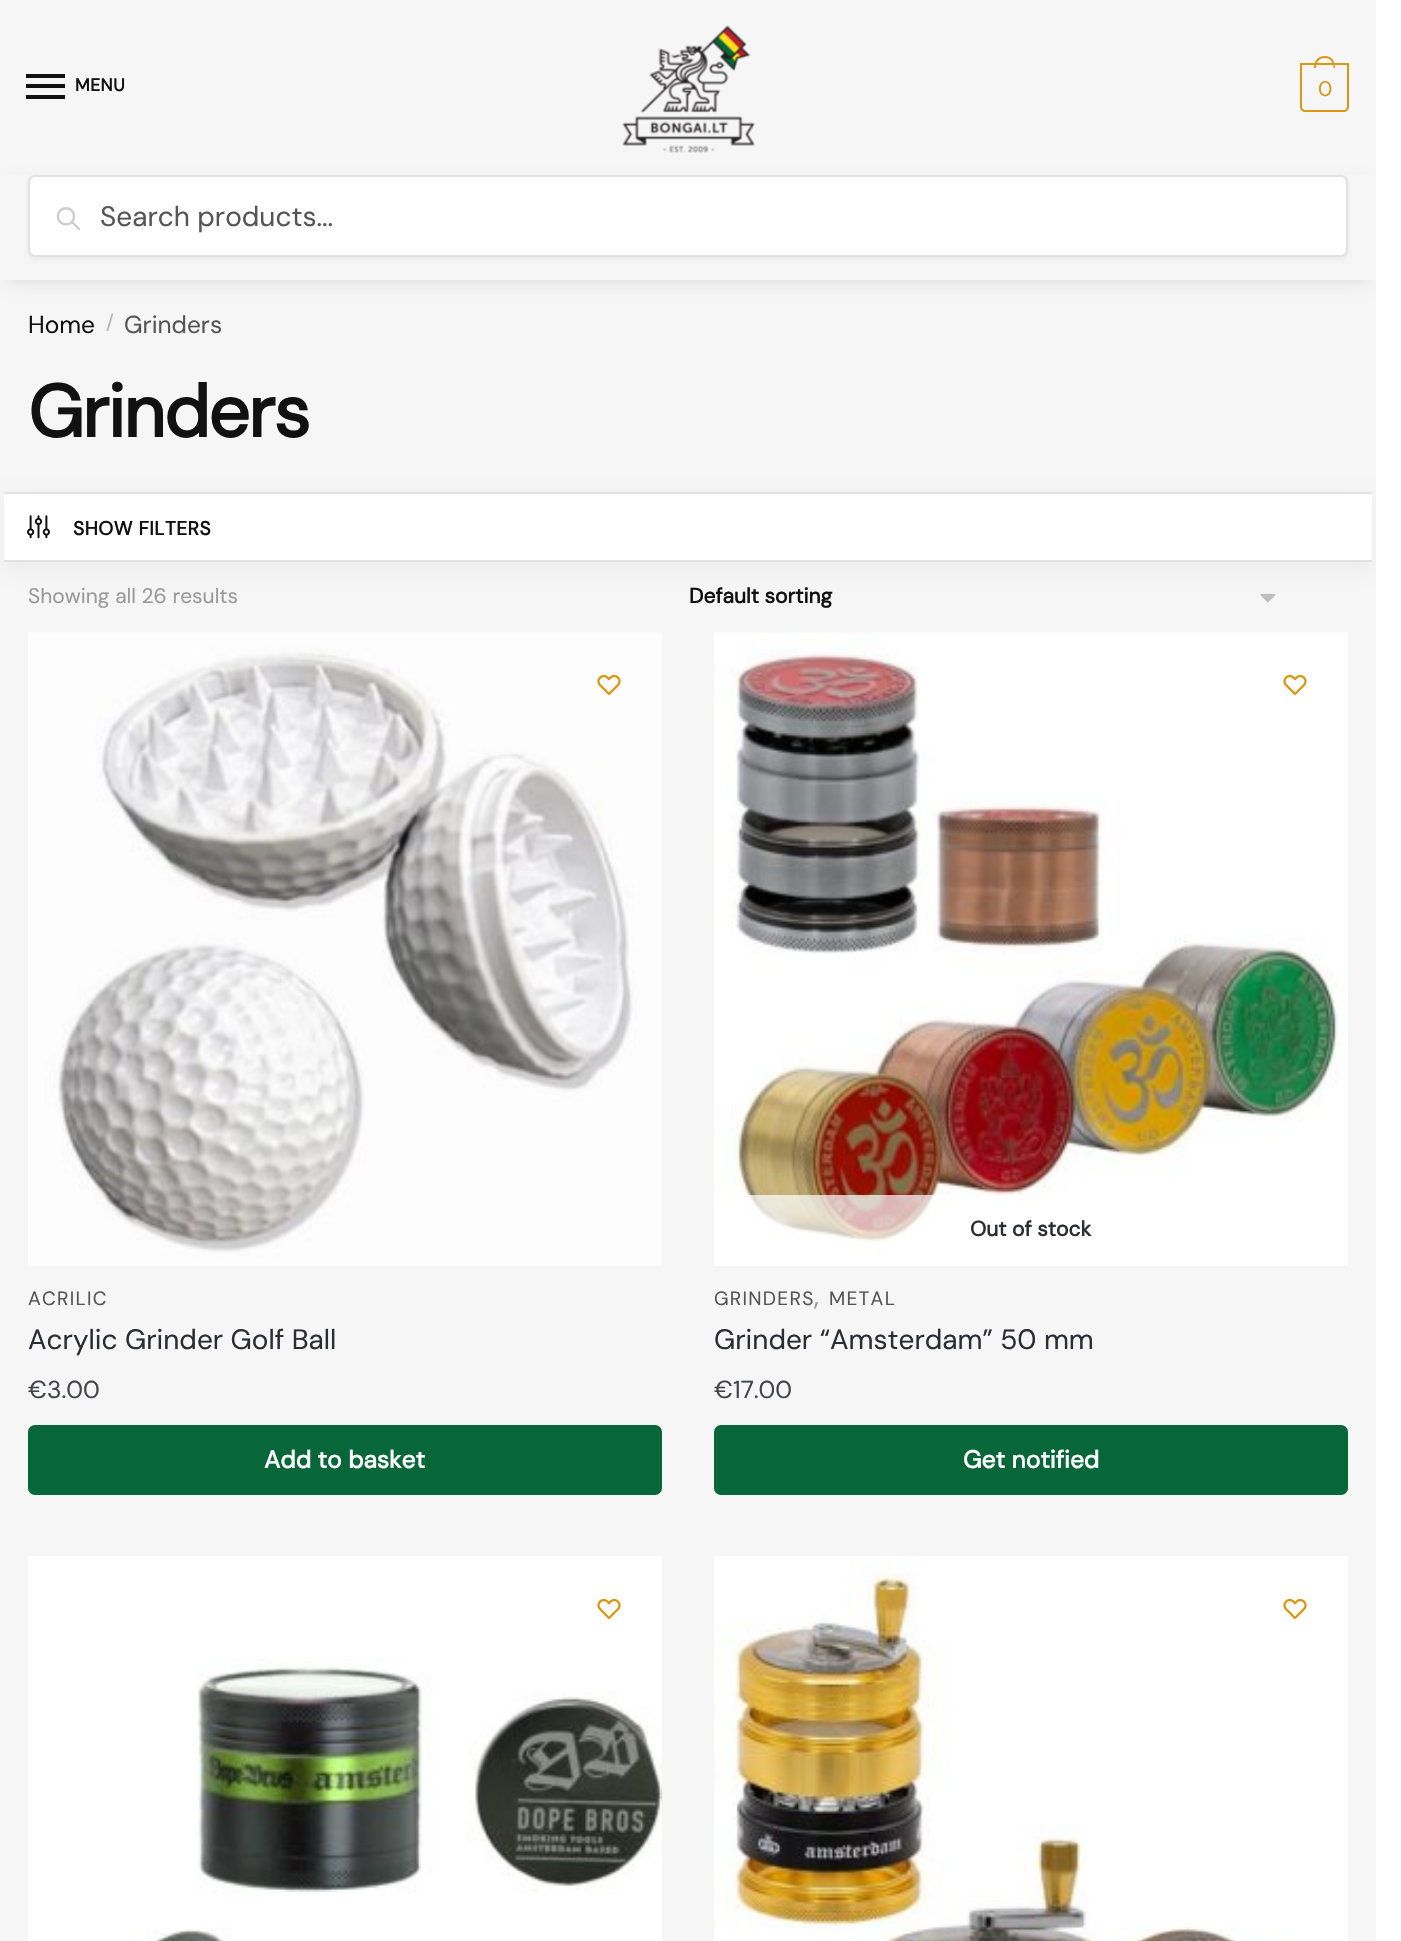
#include "include/core/SkBlurTypes.h"
#include "include/core/SkCanvas.h"
#include "include/core/SkData.h"
#include "include/core/SkFont.h"
#include "include/core/SkFontMgr.h"
#include "include/core/SkImage.h"
#include "include/core/SkMaskFilter.h"
#include "include/core/SkPaint.h"
#include "include/core/SkPathBuilder.h"
#include "include/core/SkTextBlob.h"
#include "include/effects/SkDashPathEffect.h"
#include "include/effects/SkGradientShader.h"
#include "include/utils/SkParsePath.h"

extern sk_sp<SkFontMgr> fontMgr;

static SkFont font(const char* family, int weight, float size, bool italic = false) {
    SkFontStyle style(weight, SkFontStyle::kNormal_Width,
        italic ? SkFontStyle::kItalic_Slant : SkFontStyle::kUpright_Slant);
    SkFont result(fontMgr->matchFamilyStyle(family, style), size);
    result.setSubpixel(true);
    return result;
}

static void drawLabel(SkCanvas* canvas, const char* s, float x, float y, const SkFont& font, SkColor color) {
    SkPaint ink(SkColor4f::FromColor(color));
    ink.setAntiAlias(true);
    canvas->drawString(s, x, y, font, ink);
}

static void drawTracked(SkCanvas* canvas, const char* s, float x, float y, const SkFont& font, const SkPaint& ink, float letter, float word) {
    std::vector<SkGlyphID> glyphs(font.countText(s, strlen(s), SkTextEncoding::kUTF8));
    std::vector<float> xs(glyphs.size());
    font.textToGlyphs(s, strlen(s), SkTextEncoding::kUTF8, glyphs);
    font.getXPos(glyphs, xs, x);
    float extra = 0;
    for (size_t i = 0; i < glyphs.size(); i++) {
        xs[i] += extra;
        extra += letter + word * (glyphs[i] == font.unicharToGlyph(' '));
    }
    canvas->drawTextBlob(SkTextBlob::MakeFromPosHGlyphs(glyphs, xs, y, font), 0, 0, ink);
}

static void fillRect(SkCanvas* canvas, float x, float y, float w, float h, SkColor color) {
    SkPaint ink(SkColor4f::FromColor(color));
    ink.setAntiAlias(true);
    canvas->drawRect(SkRect::MakeXYWH(x, y, w, h), ink);
}

static void fillRRect(SkCanvas* canvas, float x, float y, float w, float h, float radius, SkColor color) {
    SkPaint ink(SkColor4f::FromColor(color));
    ink.setAntiAlias(true);
    canvas->drawRoundRect(SkRect::MakeXYWH(x, y, w, h), radius, radius, ink);
}

static void drawPhoto(SkCanvas* canvas, const char* path, float x, float y, float w, float h) {
    auto image = SkImages::DeferredFromEncodedData(SkData::MakeFromFileName(path));
    canvas->drawImageRect(image, SkRect::MakeXYWH(x, y, w, h), SkSamplingOptions());
}

static SkPath parsePath(const char* data, bool evenOdd = false) {
    SkPath result = *SkParsePath::FromSVGString(data);
    if (evenOdd) result.setFillType(SkPathFillType::kEvenOdd);
    return result;
}

void draw(SkCanvas* canvas) {
    SkPaint paint;
    paint.setAntiAlias(true);
    canvas->clear(0xFFF6F6F6);
    fillRect(canvas, 26, 74, 39, 4, 0xFF111111);
    fillRect(canvas, 26, 84, 39, 4, 0xFF111111);
    SkFont font1 = font("DM Sans", 700, 17.5f);
    paint.setColor(0xFF111111);
    drawTracked(canvas, "MENU", 75, 91, font1, paint, 0.5f, 0);
    fillRect(canvas, 26, 95, 39, 4, 0xFF111111);
    drawPhoto(canvas, "assets/img1.png", 622, 25, 133, 128);
    paint.setStroke(true);
    paint.setStrokeWidth(2);
    paint.setColor(0xFFDC9814);
    canvas->drawPath(parsePath("M1301 64H1348V107C1348 109 1346 111 1344 111H1305C1303 111 1301 109 1301 107Z"), paint);
    paint.setStroke(false);
    canvas->drawPath(parsePath("M1325 56C1332 56 1335 61.5 1335 68H1314C1314 61.5 1317.5 56 1325 56ZM1325 58C1331 58 1333.5 62.5 1333.5 68H1316C1316 62.5 1318.5 58 1325 58Z", true), paint);
    SkFont font2 = font("DM Sans", 400, 21);
    drawTracked(canvas, "0", 1318, 96, font2, paint, -1, 0);
    paint.setColor(0x2E000000);
    paint.setMaskFilter(SkMaskFilter::MakeBlur(kNormal_SkBlurStyle, 9));
    canvas->drawRect(SkRect::MakeXYWH(9, 189, 1358, 88), paint);
    paint.setMaskFilter(nullptr);
    fillRect(canvas, 0, 175, 1376, 105, 0xFFF6F6F6);
    paint.setColor(0x0D000000);
    paint.setMaskFilter(SkMaskFilter::MakeBlur(kNormal_SkBlurStyle, 2));
    canvas->drawRoundRect(SkRect::MakeXYWH(28, 177, 1320, 82), 7, 7, paint);
    paint.setMaskFilter(nullptr);
    paint.setColor(0xFFFFFFFF);
    canvas->drawRoundRect(SkRect::MakeXYWH(29, 176, 1318, 80), 6, 6, paint);
    paint.setStroke(true);
    paint.setColor(0xFFE2E2E2);
    canvas->drawRoundRect(SkRect::MakeXYWH(29, 176, 1318, 80), 6, 6, paint);
    paint.setStrokeWidth(2.3f);
    paint.setStrokeCap(SkPaint::kRound_Cap);
    paint.setStrokeJoin(SkPaint::kRound_Join);
    paint.setColor(0xFFCCCCCC);
    canvas->drawPath(parsePath("M79 229L72 222M74 216.5C74 227 58 227 58 216.5C58 205.5 74 205.5 74 216.5Z"), paint);
    SkFont font3 = font("DM Sans", 400, 28);
    drawLabel(canvas, "Search products...", 100, 226, font3, 0xFF555555);
    drawPhoto(canvas, "assets/img3.png", 1260, 593, 16, 10);
    paint.setStroke(false);
    paint.setColor(0x0F000000);
    paint.setMaskFilter(SkMaskFilter::MakeBlur(kNormal_SkBlurStyle, 10.5f));
    canvas->drawRect(SkRect::MakeXYWH(7, 502, 1362, 63), paint);
    paint.setMaskFilter(nullptr);
    fillRect(canvas, 1376, 0, 25, 1941, 0xFFFFFFFF);
    SkFont font4 = font("DM Sans", 400, 24.5f);
    drawLabel(canvas, "Home", 28, 333, font4, 0xFF111111);
    SkFont font5 = font("DM Sans", 400, 20);
    drawLabel(canvas, "/", 106, 329, font5, 0xFFB6B6B6);
    drawLabel(canvas, "Grinders", 124, 333, font4, 0xFF555555);
    SkFont font6 = font("DM Sans", 700, 73.5f);
    paint.setColor(0xFF111111);
    drawTracked(canvas, "Grinders", 28, 437, font6, paint, -1.75f, 0);
    fillRect(canvas, 4, 494, 1368, 66, 0xFFFFFFFF);
    fillRect(canvas, 4, 492, 1368, 2, 0xFFE2E2E2);
    fillRect(canvas, 4, 560, 1368, 2, 0xFFE2E2E2);
    drawPhoto(canvas, "assets/img2.png", 27, 515, 23, 24);
    SkFont font7 = font("DM Sans", 700, 19.25f);
    drawTracked(canvas, "SHOW FILTERS", 73, 535, font7, paint, 0.5f, 0);
    drawLabel(canvas, "Showing all 26 results", 28, 603, font2, 0xFF999999);
    SkFont font8 = font("DM Sans", 700, 21);
    drawLabel(canvas, "Default sorting", 689, 603, font8, 0xFF111111);
    drawPhoto(canvas, "assets/img4.png", 28, 632, 634, 634);
    drawPhoto(canvas, "assets/img5.png", 597, 674, 24, 22);
    SkFont font9 = font("DM Sans", 400, 19.25f);
    paint.setColor(0xFF555555);
    drawTracked(canvas, "ACRILIC", 28, 1305, font9, paint, 1.25f, 0);
    drawLabel(canvas, "Acrylic Grinder Golf Ball", 28, 1349, font3, 0xFF2C2D33);
    drawLabel(canvas, "€", 28, 1398, font4, 0xFF43454B);
    drawLabel(canvas, "3.00", 47, 1398, font4, 0xFF43454B);
    fillRRect(canvas, 28, 1425, 634, 70, 7, 0xFF076739);
    SkFont font10 = font("DM Sans", 700, 24.5f);
    drawLabel(canvas, "Add to basket", 264, 1468, font10, 0xFFFFFFFF);
    drawPhoto(canvas, "assets/img6.png", 714, 632, 634, 634);
    drawPhoto(canvas, "assets/img5.png", 1283, 674, 24, 22);
    fillRect(canvas, 723, 1195, 328, 48, 0xB3FFFFFF);
    drawLabel(canvas, "Out of stock", 970, 1236, font8, 0xFF2C2D33);
    drawTracked(canvas, "GRINDERS", 714, 1305, font9, paint, 1.25f, 0);
    paint.setColor(0xFF999999);
    drawTracked(canvas, ",", 814, 1305, font3, paint, 1.25f, 0);
    paint.setColor(0xFF555555);
    drawTracked(canvas, "METAL", 829, 1305, font9, paint, 1.25f, 0);
    drawLabel(canvas, "Grinder “Amsterdam” 50 mm", 714, 1349, font3, 0xFF2C2D33);
    drawLabel(canvas, "€", 714, 1398, font4, 0xFF43454B);
    drawLabel(canvas, "17.00", 733, 1398, font4, 0xFF43454B);
    fillRRect(canvas, 714, 1425, 634, 70, 7, 0xFF076739);
    drawLabel(canvas, "Get notified", 963, 1468, font10, 0xFFFFFFFF);
    drawPhoto(canvas, "assets/img7.png", 28, 1556, 634, 385);
    drawPhoto(canvas, "assets/img5.png", 597, 1598, 24, 22);
    drawPhoto(canvas, "assets/img8.png", 714, 1556, 634, 385);
    drawPhoto(canvas, "assets/img5.png", 1283, 1598, 24, 22);
}
